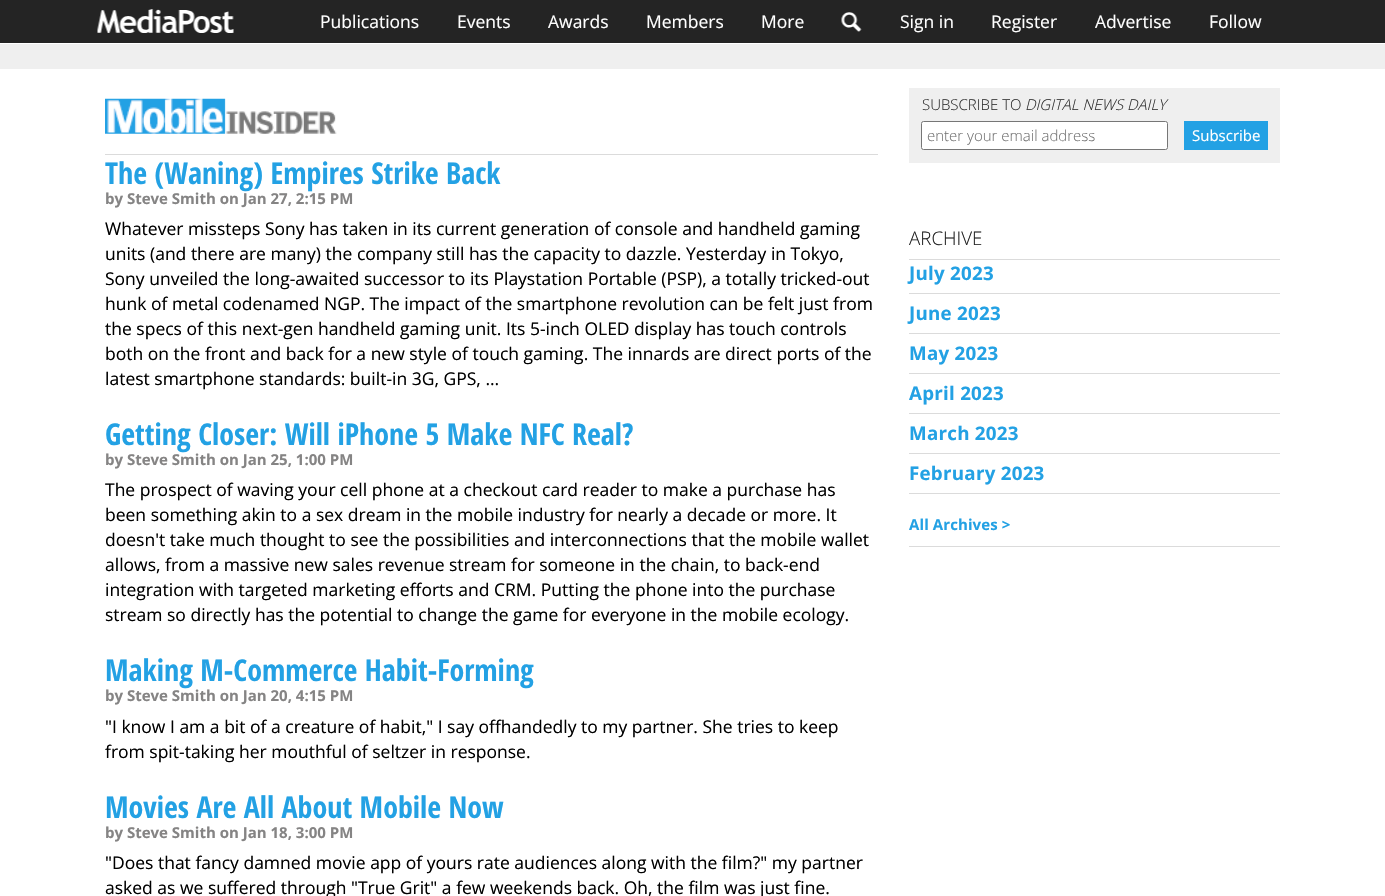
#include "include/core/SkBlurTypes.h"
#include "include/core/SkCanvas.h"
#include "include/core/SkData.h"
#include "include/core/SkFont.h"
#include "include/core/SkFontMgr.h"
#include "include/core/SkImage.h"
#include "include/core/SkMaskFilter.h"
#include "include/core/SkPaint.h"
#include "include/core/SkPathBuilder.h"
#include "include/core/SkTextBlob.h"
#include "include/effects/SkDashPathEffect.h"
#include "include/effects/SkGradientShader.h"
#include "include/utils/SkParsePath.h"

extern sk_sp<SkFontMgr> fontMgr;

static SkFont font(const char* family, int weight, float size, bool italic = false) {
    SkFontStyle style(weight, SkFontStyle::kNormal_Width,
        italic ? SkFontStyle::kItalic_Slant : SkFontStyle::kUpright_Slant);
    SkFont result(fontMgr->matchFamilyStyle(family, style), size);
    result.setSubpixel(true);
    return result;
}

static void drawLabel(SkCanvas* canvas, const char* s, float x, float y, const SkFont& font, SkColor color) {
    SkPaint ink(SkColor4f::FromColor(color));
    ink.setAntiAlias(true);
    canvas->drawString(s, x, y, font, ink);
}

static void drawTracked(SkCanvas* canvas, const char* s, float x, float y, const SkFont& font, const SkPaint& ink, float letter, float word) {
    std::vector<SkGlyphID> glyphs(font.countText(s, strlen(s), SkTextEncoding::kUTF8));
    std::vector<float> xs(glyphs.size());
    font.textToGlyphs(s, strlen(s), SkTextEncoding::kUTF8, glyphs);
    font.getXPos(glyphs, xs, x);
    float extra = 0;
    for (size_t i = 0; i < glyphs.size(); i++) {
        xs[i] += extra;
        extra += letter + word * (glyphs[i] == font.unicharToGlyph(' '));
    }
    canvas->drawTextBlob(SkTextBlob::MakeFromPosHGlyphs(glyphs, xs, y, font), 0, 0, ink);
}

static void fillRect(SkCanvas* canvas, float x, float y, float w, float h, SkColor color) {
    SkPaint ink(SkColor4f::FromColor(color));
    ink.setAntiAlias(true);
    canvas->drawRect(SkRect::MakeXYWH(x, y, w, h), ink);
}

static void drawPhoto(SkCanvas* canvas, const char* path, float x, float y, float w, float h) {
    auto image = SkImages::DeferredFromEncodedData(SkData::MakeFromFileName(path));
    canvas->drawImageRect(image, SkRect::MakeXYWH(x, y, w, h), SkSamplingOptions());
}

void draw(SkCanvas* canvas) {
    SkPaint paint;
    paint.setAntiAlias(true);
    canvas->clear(0xFFFFFFFF);
    fillRect(canvas, 0, 0, 1385, 43, 0xFF242424);
    drawPhoto(canvas, "assets/img1.png", 97, 9, 137, 24);
    SkFont font1 = font("Open Sans", 400, 17.5f);
    drawLabel(canvas, "Publications", 320, 28, font1, 0xFFFFFFFF);
    drawLabel(canvas, "Events", 457, 28, font1, 0xFFFFFFFF);
    drawLabel(canvas, "Awards", 548, 28, font1, 0xFFFFFFFF);
    drawLabel(canvas, "Members", 646, 28, font1, 0xFFFFFFFF);
    drawLabel(canvas, "More", 761, 28, font1, 0xFFFFFFFF);
    drawPhoto(canvas, "assets/img2.png", 841, 12, 21, 20);
    drawLabel(canvas, "Sign in", 900, 28, font1, 0xFFFFFFFF);
    drawLabel(canvas, "Register", 991, 28, font1, 0xFFFFFFFF);
    drawLabel(canvas, "Advertise", 1095, 28, font1, 0xFFFFFFFF);
    drawLabel(canvas, "Follow", 1209, 28, font1, 0xFFFFFFFF);
    fillRect(canvas, 0, 44, 1385, 25, 0xFFEFEFEF);
    fillRect(canvas, 105, 154, 773, 1, 0xFFDBDBDB);
    drawPhoto(canvas, "assets/img3.png", 105, 98, 232, 36);
    SkFont font2 = font("Open Sans Condensed", 700, 30);
    drawLabel(canvas, "The (Waning) Empires Strike Back", 105, 184, font2, 0xFF23A1E4);
    SkFont font3 = font("Open Sans", 700, 15);
    drawLabel(canvas, "by Steve Smith on Jan 27, 2:15 PM", 105, 204, font3, 0xFF858484);
    drawLabel(canvas, "Whatever missteps Sony has taken in its current generation of console and handheld gaming", 105, 235, font1, 0xFF000000);
    drawLabel(canvas, "units (and there are many) the company still has the capacity to dazzle. Yesterday in Tokyo,", 105, 260, font1, 0xFF000000);
    drawLabel(canvas, "Sony unveiled the long-awaited successor to its Playstation Portable (PSP), a totally tricked-out", 105, 285, font1, 0xFF000000);
    drawLabel(canvas, "hunk of metal codenamed NGP. The impact of the smartphone revolution can be felt just from", 105, 310, font1, 0xFF000000);
    drawLabel(canvas, "the specs of this next-gen handheld gaming unit. Its 5-inch OLED display has touch controls", 105, 335, font1, 0xFF000000);
    drawLabel(canvas, "both on the front and back for a new style of touch gaming. The innards are direct ports of the", 105, 360, font1, 0xFF000000);
    drawLabel(canvas, "latest smartphone standards: built-in 3G, GPS, …", 105, 385, font1, 0xFF000000);
    drawLabel(canvas, "Getting Closer: Will iPhone 5 Make NFC Real?", 105, 445, font2, 0xFF23A1E4);
    drawLabel(canvas, "by Steve Smith on Jan 25, 1:00 PM", 105, 465, font3, 0xFF858484);
    drawLabel(canvas, "The prospect of waving your cell phone at a checkout card reader to make a purchase has", 105, 496, font1, 0xFF000000);
    drawLabel(canvas, "been something akin to a sex dream in the mobile industry for nearly a decade or more. It", 105, 521, font1, 0xFF000000);
    drawLabel(canvas, "doesn't take much thought to see the possibilities and interconnections that the mobile wallet", 105, 546, font1, 0xFF000000);
    drawLabel(canvas, "allows, from a massive new sales revenue stream for someone in the chain, to back-end", 105, 571, font1, 0xFF000000);
    drawLabel(canvas, "integration with targeted marketing efforts and CRM. Putting the phone into the purchase", 105, 596, font1, 0xFF000000);
    drawLabel(canvas, "stream so directly has the potential to change the game for everyone in the mobile ecology.", 105, 621, font1, 0xFF000000);
    drawLabel(canvas, "Making M-Commerce Habit-Forming", 105, 681, font2, 0xFF23A1E4);
    drawLabel(canvas, "by Steve Smith on Jan 20, 4:15 PM", 105, 701, font3, 0xFF858484);
    drawLabel(canvas, "\"I know I am a bit of a creature of habit,\" I say offhandedly to my partner. She tries to keep", 105, 733, font1, 0xFF000000);
    drawLabel(canvas, "from spit-taking her mouthful of seltzer in response.", 105, 758, font1, 0xFF000000);
    drawLabel(canvas, "Movies Are All About Mobile Now", 105, 818, font2, 0xFF23A1E4);
    drawLabel(canvas, "by Steve Smith on Jan 18, 3:00 PM", 105, 838, font3, 0xFF858484);
    drawLabel(canvas, "\"Does that fancy damned movie app of yours rate audiences along with the film?\" my partner", 105, 869, font1, 0xFF000000);
    drawLabel(canvas, "asked as we suffered through \"True Grit\" a few weekends back. Oh, the film was just fine.", 105, 894, font1, 0xFF000000);
    fillRect(canvas, 909, 88, 371, 75, 0xFFEFEFEF);
    SkFont font4 = font("Open Sans", 300, 15);
    drawLabel(canvas, "SUBSCRIBE TO", 922, 110, font4, 0xFF333333);
    SkFont font5 = font("Open Sans", 300, 15, true);
    drawLabel(canvas, "DIGITAL NEWS DAILY", 1025, 110, font5, 0xFF333333);
    paint.setColor(0xFFFFFFFF);
    canvas->drawRoundRect(SkRect::MakeXYWH(921.5f, 121.5f, 246, 28), 2, 2, paint);
    paint.setStroke(true);
    paint.setStrokeWidth(1);
    paint.setColor(0xFF767676);
    canvas->drawRoundRect(SkRect::MakeXYWH(921.5f, 121.5f, 246, 28), 2, 2, paint);
    drawLabel(canvas, "enter your email address", 927, 141, font4, 0xFF757575);
    fillRect(canvas, 1184, 121, 84, 29, 0xFF23A1E4);
    SkFont font6 = font("Open Sans", 400, 15);
    drawLabel(canvas, "Subscribe", 1192, 141, font6, 0xFFFFFFFF);
    fillRect(canvas, 909, 259, 371, 1, 0xFFDBDBDB);
    SkFont font7 = font("Open Sans", 300, 18.75f);
    drawLabel(canvas, "ARCHIVE", 909, 245, font7, 0xFF242424);
    fillRect(canvas, 909, 293, 371, 1, 0xFFDBDBDB);
    SkFont font8 = font("Open Sans", 700, 18.75f);
    paint.setStroke(false);
    paint.setColor(0xFF23A1E4);
    drawTracked(canvas, "July 2023", 909, 280, font8, paint, 0.25f, 0);
    fillRect(canvas, 909, 333, 371, 1, 0xFFDBDBDB);
    drawTracked(canvas, "June 2023", 909, 320, font8, paint, 0.25f, 0);
    fillRect(canvas, 909, 373, 371, 1, 0xFFDBDBDB);
    drawTracked(canvas, "May 2023", 909, 360, font8, paint, 0.25f, 0);
    fillRect(canvas, 909, 413, 371, 1, 0xFFDBDBDB);
    drawTracked(canvas, "April 2023", 909, 400, font8, paint, 0.25f, 0);
    fillRect(canvas, 909, 453, 371, 1, 0xFFDBDBDB);
    drawTracked(canvas, "March 2023", 909, 440, font8, paint, 0.25f, 0);
    fillRect(canvas, 909, 493, 371, 1, 0xFFDBDBDB);
    drawTracked(canvas, "February 2023", 909, 480, font8, paint, 0.25f, 0);
    fillRect(canvas, 909, 546, 371, 1, 0xFFDBDBDB);
    drawTracked(canvas, "All Archives >", 909, 530, font3, paint, 0.1f, 0);
}
